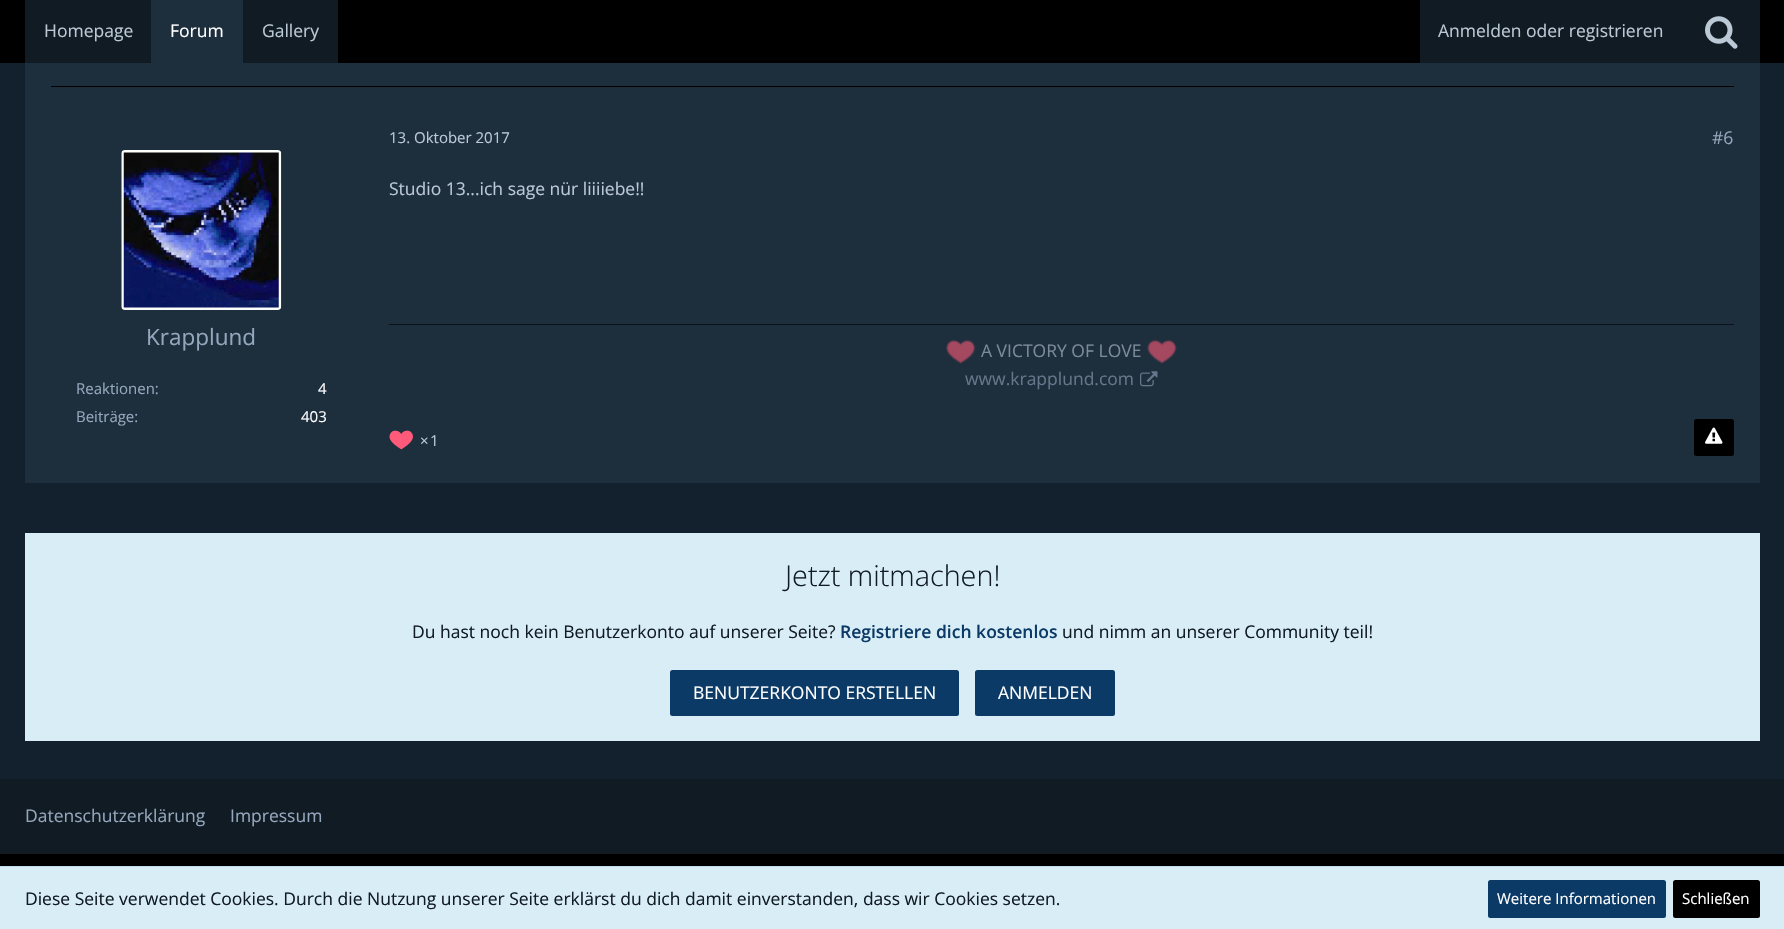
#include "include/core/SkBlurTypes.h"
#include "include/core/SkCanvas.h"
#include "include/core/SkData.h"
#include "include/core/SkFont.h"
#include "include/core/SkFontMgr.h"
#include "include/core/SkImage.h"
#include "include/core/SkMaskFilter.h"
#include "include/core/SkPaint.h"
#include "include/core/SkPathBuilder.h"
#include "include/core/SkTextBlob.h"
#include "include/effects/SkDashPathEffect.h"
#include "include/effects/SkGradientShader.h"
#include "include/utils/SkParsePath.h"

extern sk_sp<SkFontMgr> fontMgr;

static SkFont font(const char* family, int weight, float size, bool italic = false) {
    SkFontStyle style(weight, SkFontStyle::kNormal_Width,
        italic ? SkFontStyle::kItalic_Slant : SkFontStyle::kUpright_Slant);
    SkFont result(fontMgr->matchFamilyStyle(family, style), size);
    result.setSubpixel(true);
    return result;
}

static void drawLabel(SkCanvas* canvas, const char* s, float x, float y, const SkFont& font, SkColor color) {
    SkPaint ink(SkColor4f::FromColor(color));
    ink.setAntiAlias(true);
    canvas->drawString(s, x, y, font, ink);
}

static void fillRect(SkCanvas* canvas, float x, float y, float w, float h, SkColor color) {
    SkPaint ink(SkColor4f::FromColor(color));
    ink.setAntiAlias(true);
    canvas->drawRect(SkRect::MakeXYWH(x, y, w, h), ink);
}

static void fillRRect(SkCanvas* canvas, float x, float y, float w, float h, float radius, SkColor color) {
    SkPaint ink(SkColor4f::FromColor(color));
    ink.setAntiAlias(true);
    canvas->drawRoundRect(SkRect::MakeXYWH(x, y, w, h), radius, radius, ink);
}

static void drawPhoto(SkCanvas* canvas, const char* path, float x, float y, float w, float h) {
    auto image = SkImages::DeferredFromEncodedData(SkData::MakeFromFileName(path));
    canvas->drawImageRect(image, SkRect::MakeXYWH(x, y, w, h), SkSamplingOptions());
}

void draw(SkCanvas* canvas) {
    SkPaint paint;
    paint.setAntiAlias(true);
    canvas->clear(0xFF13212E);
    fillRect(canvas, 0, 0, 1784, 63, 0xFF000000);
    fillRect(canvas, 25, 0, 126, 63, 0xFF111B24);
    SkFont font1 = font("Open Sans", 400, 17.5f);
    drawLabel(canvas, "Homepage", 44, 37, font1, 0xFFBBC9D6);
    fillRect(canvas, 151, 0, 92, 63, 0xFF1D2E3D);
    drawLabel(canvas, "Forum", 170, 37, font1, 0xFFFFFFFF);
    fillRect(canvas, 243, 0, 95, 63, 0xFF111B24);
    drawLabel(canvas, "Gallery", 262, 37, font1, 0xFFBBC9D6);
    fillRect(canvas, 1420, 0, 340, 63, 0xFF111B24);
    drawLabel(canvas, "Anmelden oder registrieren", 1438, 37, font1, 0xFFBBC9D6);
    drawPhoto(canvas, "assets/img1.png", 1705, 16, 33, 33);
    fillRect(canvas, 25, 63, 1735, 420, 0xFF1D2E3D);
    fillRect(canvas, 51, 86, 1683, 1, 0xFF000000);
    fillRRect(canvas, 121, 150, 160, 160, 4, 0xFF000000);
    drawPhoto(canvas, "assets/img2.png", 121, 150, 161, 160);
    SkFont font2 = font("Open Sans", 400, 22.5f);
    drawLabel(canvas, "Krapplund", 146, 345, font2, 0xFF95A7BD);
    SkFont font3 = font("Open Sans", 400, 15);
    drawLabel(canvas, "Reaktionen:", 76, 394, font3, 0xFF95A7BD);
    drawLabel(canvas, "4", 318, 394, font3, 0xFFFFFFFF);
    drawLabel(canvas, "Beiträge:", 76, 422, font3, 0xFF95A7BD);
    drawLabel(canvas, "403", 301, 422, font3, 0xFFFFFFFF);
    drawLabel(canvas, "13. Oktober 2017", 389, 143, font3, 0xFFBBC9D6);
    drawLabel(canvas, "#6", 1712, 144, font1, 0xFF95A7BD);
    drawLabel(canvas, "Studio 13...ich sage nür liiiiebe!!", 389, 195, font1, 0xFFBBC9D6);
    fillRect(canvas, 389, 324, 1345, 1, 0xFF0C1218);
    drawPhoto(canvas, "assets/img3.png", 946, 339, 30, 25);
    drawLabel(canvas, "A VICTORY OF LOVE", 981, 357, font1, 0xFF7C8B99);
    drawPhoto(canvas, "assets/img4.png", 1147, 339, 30, 25);
    drawLabel(canvas, "www.krapplund.com", 965, 385, font1, 0xFF65778A);
    drawPhoto(canvas, "assets/img5.png", 1140, 371, 18, 16);
    drawPhoto(canvas, "assets/img6.png", 389, 430, 24, 20);
    drawLabel(canvas, "×", 420, 446, font3, 0xFFBBC9D6);
    drawLabel(canvas, "1", 430, 446, font3, 0xFFBBC9D6);
    fillRRect(canvas, 1694, 419, 40, 37, 2.5f, 0xFF000000);
    drawPhoto(canvas, "assets/img7.png", 1705, 427, 18, 17);
    fillRect(canvas, 25, 533, 1735, 208, 0xFFD9EDF7);
    SkFont font4 = font("Open Sans", 300, 28.75f);
    drawLabel(canvas, "Jetzt mitmachen!", 785, 586, font4, 0xFF111B24);
    drawLabel(canvas, "Du hast noch kein Benutzerkonto auf unserer Seite?", 412, 638, font1, 0xFF111B24);
    SkFont font5 = font("Open Sans", 600, 17.5f);
    drawLabel(canvas, "Registriere dich kostenlos", 840, 638, font5, 0xFF0B3A66);
    drawLabel(canvas, "und nimm an unserer Community teil!", 1062, 638, font1, 0xFF111B24);
    fillRRect(canvas, 670, 670, 289, 46, 2.5f, 0xFF0B3A66);
    drawLabel(canvas, "BENUTZERKONTO ERSTELLEN", 693, 699, font1, 0xFFFFFFFF);
    fillRRect(canvas, 975, 670, 140, 46, 2.5f, 0xFF0B3A66);
    drawLabel(canvas, "ANMELDEN", 998, 699, font1, 0xFFFFFFFF);
    fillRect(canvas, 0, 779, 1784, 75, 0xFF111B24);
    drawLabel(canvas, "Datenschutzerklärung", 25, 822, font1, 0xFF95A7BD);
    drawLabel(canvas, "Impressum", 230, 822, font1, 0xFF95A7BD);
    fillRect(canvas, 0, 854, 1784, 12, 0xFF000000);
    fillRect(canvas, 0, 867, 1784, 62, 0xFFD9EDF7);
    fillRect(canvas, 0, 866, 1784, 1, 0xFFBCDFF1);
    drawLabel(canvas, "Diese Seite verwendet Cookies. Durch die Nutzung unserer Seite erklärst du dich damit einverstanden, dass wir Cookies setzen.", 25, 905, font1, 0xFF111B24);
    fillRRect(canvas, 1488, 880, 178, 38, 2.5f, 0xFF0B3A66);
    drawLabel(canvas, "Weitere Informationen", 1497, 904, font3, 0xFFFFFFFF);
    fillRRect(canvas, 1673, 880, 87, 38, 2.5f, 0xFF000000);
    drawLabel(canvas, "Schließen", 1682, 904, font3, 0xFFFFFFFF);
}
